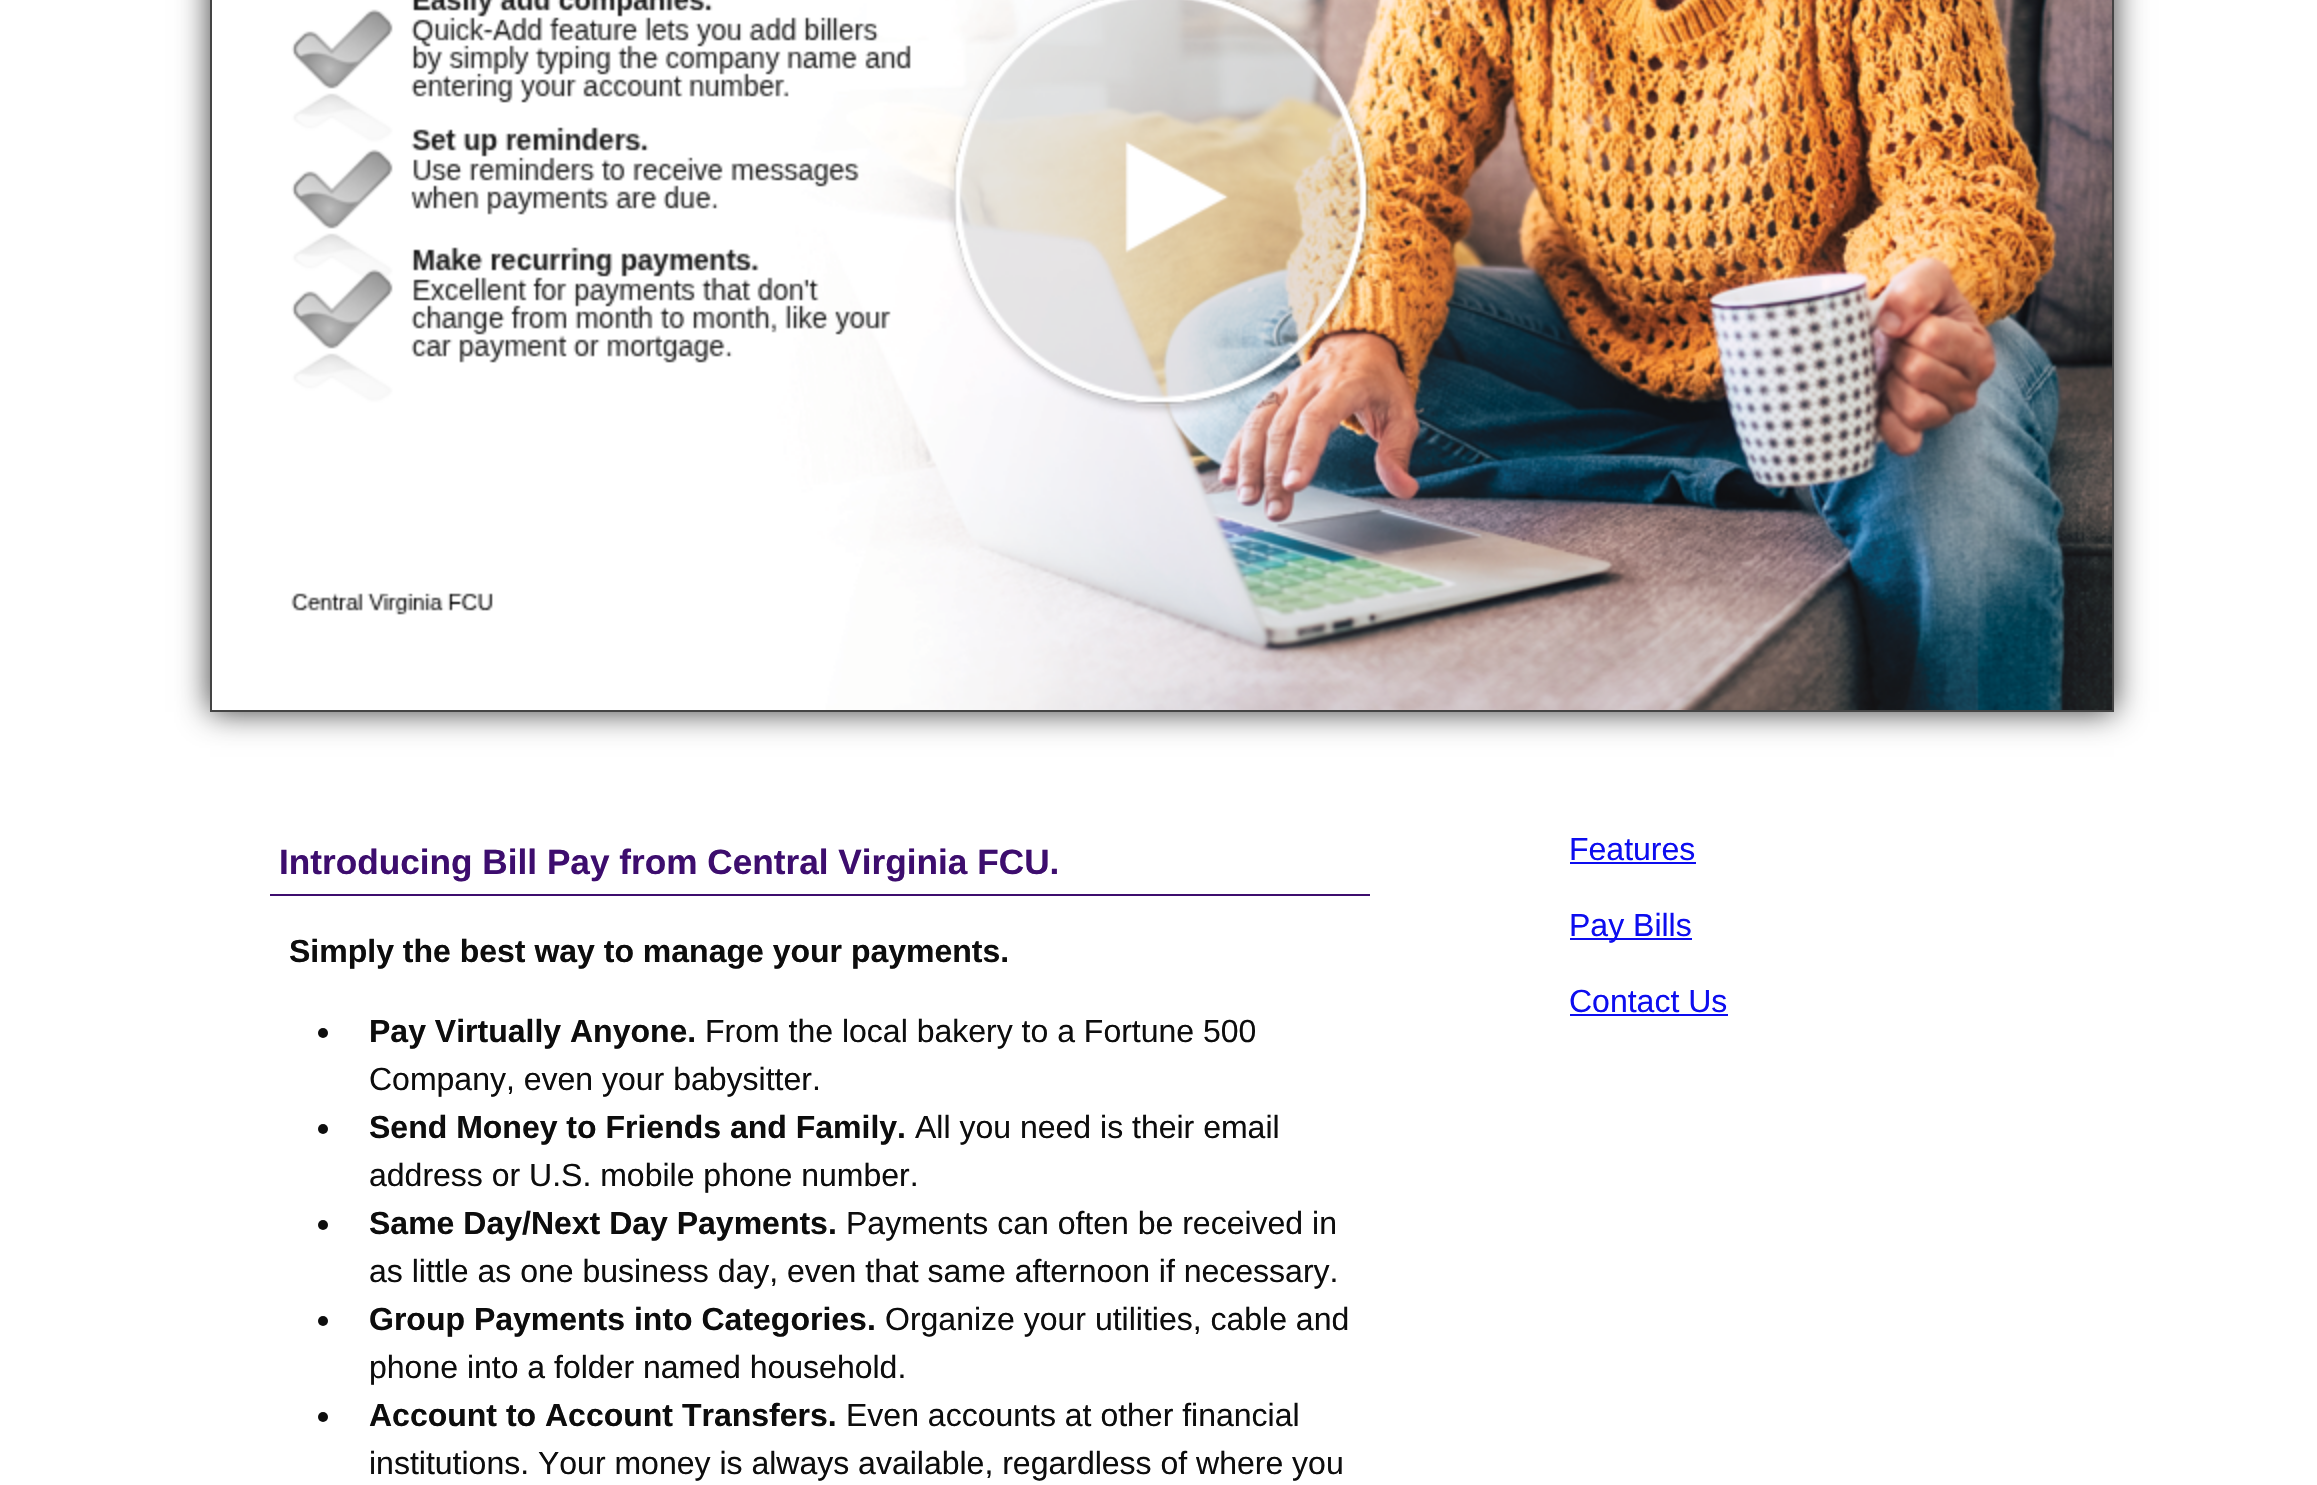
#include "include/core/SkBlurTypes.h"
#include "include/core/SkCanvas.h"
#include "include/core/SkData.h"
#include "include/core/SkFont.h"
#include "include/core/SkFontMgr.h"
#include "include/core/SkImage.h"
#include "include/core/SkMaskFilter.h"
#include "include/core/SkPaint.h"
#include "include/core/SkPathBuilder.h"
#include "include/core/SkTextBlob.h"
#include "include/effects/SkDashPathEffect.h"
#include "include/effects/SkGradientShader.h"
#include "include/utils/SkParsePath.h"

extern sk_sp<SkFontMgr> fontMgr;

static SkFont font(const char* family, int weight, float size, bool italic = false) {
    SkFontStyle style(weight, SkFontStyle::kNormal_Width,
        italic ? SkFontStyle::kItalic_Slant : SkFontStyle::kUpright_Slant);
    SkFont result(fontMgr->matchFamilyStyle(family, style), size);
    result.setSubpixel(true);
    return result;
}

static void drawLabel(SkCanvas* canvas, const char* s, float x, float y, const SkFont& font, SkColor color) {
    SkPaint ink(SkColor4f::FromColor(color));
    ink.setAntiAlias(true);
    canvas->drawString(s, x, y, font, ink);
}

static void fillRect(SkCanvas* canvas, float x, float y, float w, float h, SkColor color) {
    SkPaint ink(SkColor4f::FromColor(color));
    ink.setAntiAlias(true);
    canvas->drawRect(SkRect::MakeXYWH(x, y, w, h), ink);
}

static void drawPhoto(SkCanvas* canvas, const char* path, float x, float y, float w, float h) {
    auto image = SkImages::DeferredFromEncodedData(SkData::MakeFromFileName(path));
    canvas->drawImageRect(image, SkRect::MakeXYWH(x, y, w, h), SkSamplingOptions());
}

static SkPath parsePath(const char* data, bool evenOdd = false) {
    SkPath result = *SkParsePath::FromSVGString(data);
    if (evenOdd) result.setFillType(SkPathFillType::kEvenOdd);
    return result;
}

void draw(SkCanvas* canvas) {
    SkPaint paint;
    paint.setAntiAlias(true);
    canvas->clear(0xFFFFFFFF);
    canvas->save();
    canvas->clipPath(parsePath("M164 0H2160V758H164ZM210-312H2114V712H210Z", true), true);
    paint.setColor(0xC4000000);
    paint.setMaskFilter(SkMaskFilter::MakeBlur(kNormal_SkBlurStyle, 15));
    canvas->drawRect(SkRect::MakeXYWH(210, -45, 1904, 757), paint);
    paint.setMaskFilter(nullptr);
    canvas->restore();
    paint.setStroke(true);
    paint.setStrokeWidth(2);
    paint.setColor(0xFF444444);
    canvas->drawRect(SkRect::MakeXYWH(211, -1, 1902, 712), paint);
    drawPhoto(canvas, "assets/img1.png", 291, 0, 1821, 710);
    fillRect(canvas, 270, 894, 1100, 2, 0xFF3D0D6E);
    SkFont font1 = font("Liberation Sans", 700, 35.2f);
    drawLabel(canvas, "Introducing Bill Pay from Central Virginia FCU.", 279, 874, font1, 0xFF3D0D6E);
    SkFont font2 = font("Liberation Sans", 700, 32);
    drawLabel(canvas, "Simply the best way to manage your payments.", 289, 962, font2, 0xFF0D0D0D);
    paint.setStroke(false);
    paint.setColor(0xFF0D0D0D);
    canvas->drawCircle(323, 1033, 5, paint);
    drawLabel(canvas, "Pay Virtually Anyone.", 369, 1042, font2, 0xFF0D0D0D);
    SkFont font3 = font("Liberation Sans", 400, 32);
    drawLabel(canvas, "From the local bakery to a Fortune 500", 705, 1042, font3, 0xFF0D0D0D);
    drawLabel(canvas, "Company, even your babysitter.", 369, 1090, font3, 0xFF0D0D0D);
    canvas->drawCircle(323, 1129, 5, paint);
    drawLabel(canvas, "Send Money to Friends and Family.", 369, 1138, font2, 0xFF0D0D0D);
    drawLabel(canvas, "All you need is their email", 915, 1138, font3, 0xFF0D0D0D);
    drawLabel(canvas, "address or U.S. mobile phone number.", 369, 1186, font3, 0xFF0D0D0D);
    canvas->drawCircle(323, 1225, 5, paint);
    drawLabel(canvas, "Same Day/Next Day Payments.", 369, 1234, font2, 0xFF0D0D0D);
    drawLabel(canvas, "Payments can often be received in", 846, 1234, font3, 0xFF0D0D0D);
    drawLabel(canvas, "as little as one business day, even that same afternoon if necessary.", 369, 1282, font3, 0xFF0D0D0D);
    canvas->drawCircle(323, 1321, 5, paint);
    drawLabel(canvas, "Group Payments into Categories.", 369, 1330, font2, 0xFF0D0D0D);
    drawLabel(canvas, "Organize your utilities, cable and", 885, 1330, font3, 0xFF0D0D0D);
    drawLabel(canvas, "phone into a folder named household.", 369, 1378, font3, 0xFF0D0D0D);
    canvas->drawCircle(323, 1417, 5, paint);
    drawLabel(canvas, "Account to Account Transfers.", 369, 1426, font2, 0xFF0D0D0D);
    drawLabel(canvas, "Even accounts at other financial", 846, 1426, font3, 0xFF0D0D0D);
    drawLabel(canvas, "institutions. Your money is always available, regardless of where you", 369, 1474, font3, 0xFF0D0D0D);
    drawLabel(canvas, "Features", 1569, 860, font3, 0xFF0D0DEF);
    fillRect(canvas, 1570, 862, 126, 2, 0xFF0D0DEF);
    fillRect(canvas, 1570, 938, 122, 2, 0xFF0D0DEF);
    drawLabel(canvas, "Pay Bills", 1569, 936, font3, 0xFF0D0DEF);
    drawLabel(canvas, "Contact Us", 1569, 1012, font3, 0xFF0D0DEF);
    fillRect(canvas, 1570, 1014, 158, 2, 0xFF0D0DEF);
}
